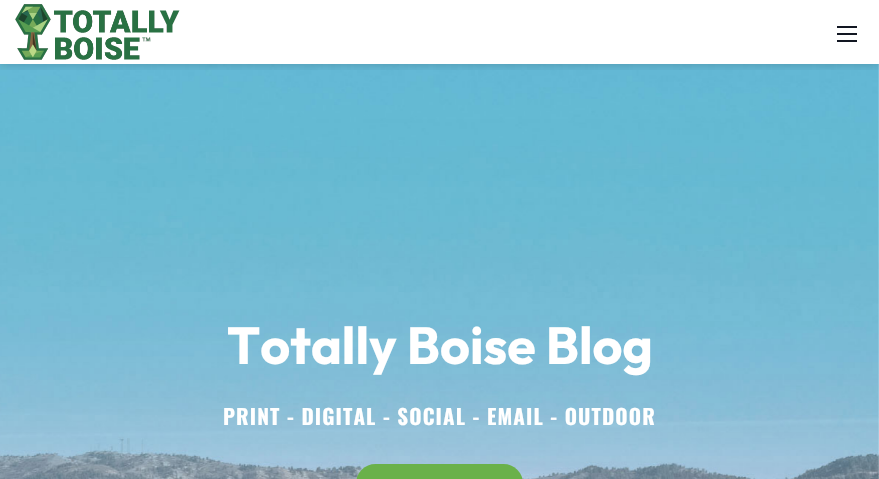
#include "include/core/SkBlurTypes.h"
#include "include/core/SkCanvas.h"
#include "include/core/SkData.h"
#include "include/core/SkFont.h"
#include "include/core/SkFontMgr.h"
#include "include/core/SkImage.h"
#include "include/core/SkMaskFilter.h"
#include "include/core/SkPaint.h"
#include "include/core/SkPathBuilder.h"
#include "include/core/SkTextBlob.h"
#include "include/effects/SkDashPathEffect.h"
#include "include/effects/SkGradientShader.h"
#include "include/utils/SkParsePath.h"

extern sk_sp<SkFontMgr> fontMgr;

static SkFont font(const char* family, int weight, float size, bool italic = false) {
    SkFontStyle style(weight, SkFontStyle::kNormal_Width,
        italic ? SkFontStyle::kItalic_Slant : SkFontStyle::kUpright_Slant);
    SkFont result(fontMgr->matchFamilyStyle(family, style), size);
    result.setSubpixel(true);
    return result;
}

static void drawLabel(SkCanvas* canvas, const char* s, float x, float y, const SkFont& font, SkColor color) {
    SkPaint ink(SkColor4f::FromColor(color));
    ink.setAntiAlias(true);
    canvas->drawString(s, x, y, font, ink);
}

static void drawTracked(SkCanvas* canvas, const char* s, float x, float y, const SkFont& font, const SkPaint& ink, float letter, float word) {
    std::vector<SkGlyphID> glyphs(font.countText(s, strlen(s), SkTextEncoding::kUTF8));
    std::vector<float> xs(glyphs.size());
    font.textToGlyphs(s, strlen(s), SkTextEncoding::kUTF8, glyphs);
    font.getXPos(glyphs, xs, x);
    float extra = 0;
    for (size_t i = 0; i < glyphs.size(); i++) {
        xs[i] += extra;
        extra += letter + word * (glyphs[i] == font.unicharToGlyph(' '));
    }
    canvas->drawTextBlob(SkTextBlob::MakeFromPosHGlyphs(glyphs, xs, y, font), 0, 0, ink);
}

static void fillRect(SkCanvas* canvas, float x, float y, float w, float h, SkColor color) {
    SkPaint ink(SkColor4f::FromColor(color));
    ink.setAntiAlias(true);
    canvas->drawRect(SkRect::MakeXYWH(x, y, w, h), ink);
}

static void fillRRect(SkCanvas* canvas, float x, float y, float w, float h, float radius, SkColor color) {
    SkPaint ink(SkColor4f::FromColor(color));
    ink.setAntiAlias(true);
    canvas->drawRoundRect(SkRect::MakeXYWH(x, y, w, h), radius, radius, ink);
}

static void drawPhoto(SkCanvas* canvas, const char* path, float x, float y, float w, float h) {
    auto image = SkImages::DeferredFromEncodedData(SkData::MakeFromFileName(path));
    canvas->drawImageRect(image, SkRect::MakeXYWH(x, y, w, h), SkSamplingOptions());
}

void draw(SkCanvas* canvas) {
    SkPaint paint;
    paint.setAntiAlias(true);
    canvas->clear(0xFFFFFFFF);
    drawPhoto(canvas, "assets/img2.png", 0, 64, 879, 415);
    canvas->save();
    canvas->clipRect(SkRect::MakeXYWH(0, 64, 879, 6));
    paint.setColor(0x33000000);
    paint.setMaskFilter(SkMaskFilter::MakeBlur(kNormal_SkBlurStyle, 5));
    canvas->drawRect(SkRect::MakeXYWH(0, 0, 879, 64), paint);
    paint.setMaskFilter(nullptr);
    canvas->restore();
    drawPhoto(canvas, "assets/img1.png", 15, 4, 165, 56);
    fillRect(canvas, 837, 26, 20, 2, 0xFF121722);
    fillRect(canvas, 837, 33, 20, 2, 0xFF121722);
    fillRect(canvas, 837, 40, 20, 2, 0xFF121722);
    SkFont font1 = font("Outfit", 700, 52);
    drawLabel(canvas, "Totally Boise Blog", 227, 364, font1, 0xFFFFFFFF);
    SkFont font2 = font("Oswald", 700, 21);
    paint.setColor(0xFFFFFFFF);
    drawTracked(canvas, "PRINT - DIGITAL - SOCIAL - EMAIL - OUTDOOR", 223, 425, font2, paint, 1.1f, 0);
    fillRRect(canvas, 356, 464, 167, 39, 24, 0xFF6AB14A);
}
